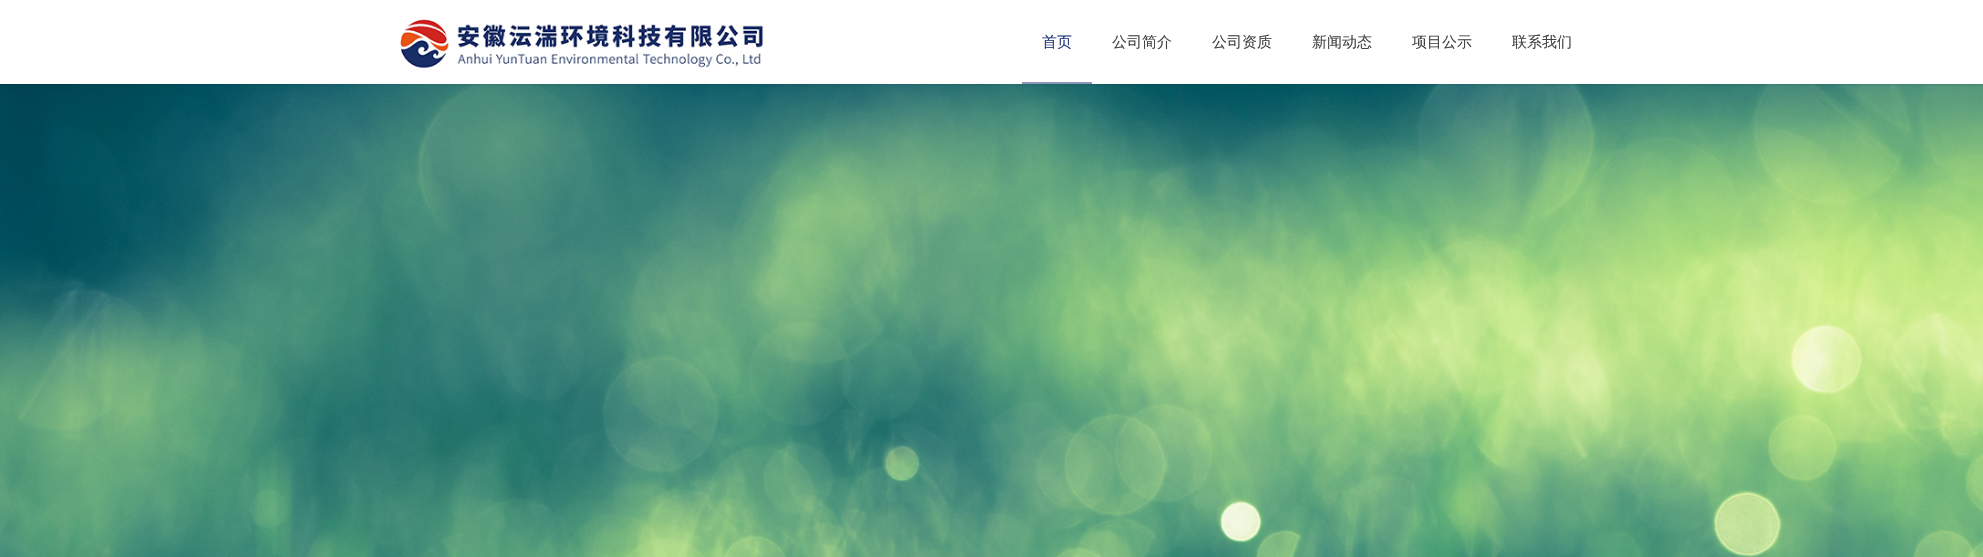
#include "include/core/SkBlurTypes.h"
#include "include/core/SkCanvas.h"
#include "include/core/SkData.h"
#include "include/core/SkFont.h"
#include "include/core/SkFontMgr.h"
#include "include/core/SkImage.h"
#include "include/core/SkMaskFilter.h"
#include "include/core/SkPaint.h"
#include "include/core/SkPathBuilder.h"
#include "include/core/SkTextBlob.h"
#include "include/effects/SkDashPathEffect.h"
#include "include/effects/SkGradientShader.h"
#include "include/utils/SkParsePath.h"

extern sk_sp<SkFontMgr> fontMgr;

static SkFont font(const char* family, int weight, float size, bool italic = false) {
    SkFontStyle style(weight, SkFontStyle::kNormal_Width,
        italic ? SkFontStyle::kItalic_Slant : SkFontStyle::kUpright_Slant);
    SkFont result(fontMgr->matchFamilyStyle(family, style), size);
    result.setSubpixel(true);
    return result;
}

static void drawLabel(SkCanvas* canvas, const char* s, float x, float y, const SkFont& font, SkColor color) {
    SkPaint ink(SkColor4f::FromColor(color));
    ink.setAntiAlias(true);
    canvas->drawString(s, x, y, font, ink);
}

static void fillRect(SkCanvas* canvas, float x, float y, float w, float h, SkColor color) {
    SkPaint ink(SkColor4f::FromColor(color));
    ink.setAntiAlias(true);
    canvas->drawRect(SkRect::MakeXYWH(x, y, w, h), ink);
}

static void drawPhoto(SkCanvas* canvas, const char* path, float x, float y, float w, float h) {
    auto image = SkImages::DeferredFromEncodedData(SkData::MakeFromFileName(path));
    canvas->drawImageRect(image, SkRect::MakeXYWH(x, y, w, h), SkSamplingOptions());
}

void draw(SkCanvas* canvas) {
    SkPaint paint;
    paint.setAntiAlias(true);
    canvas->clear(0xFFFFFFFF);
    drawPhoto(canvas, "assets/img2.png", 0, 84, 1983, 473);
    canvas->save();
    canvas->clipRect(SkRect::MakeXYWH(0, 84, 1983, 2));
    paint.setColor(0x1A000000);
    paint.setMaskFilter(SkMaskFilter::MakeBlur(kNormal_SkBlurStyle, 1));
    canvas->drawRect(SkRect::MakeXYWH(0, 1, 1983, 84), paint);
    paint.setMaskFilter(nullptr);
    canvas->restore();
    drawPhoto(canvas, "assets/img1.png", 400, 19, 364, 50);
    SkFont font1 = font("WenQuanYi Zen Hei", 500, 15);
    drawLabel(canvas, "首页", 1042, 47, font1, 0xFF233876);
    fillRect(canvas, 1022, 82, 70, 2, 0xFF8D98B8);
    drawLabel(canvas, "公司简介", 1112, 47, font1, 0xFF444444);
    drawLabel(canvas, "公司资质", 1212, 47, font1, 0xFF444444);
    drawLabel(canvas, "新闻动态", 1312, 47, font1, 0xFF444444);
    drawLabel(canvas, "项目公示", 1412, 47, font1, 0xFF444444);
    drawLabel(canvas, "联系我们", 1512, 47, font1, 0xFF444444);
}
